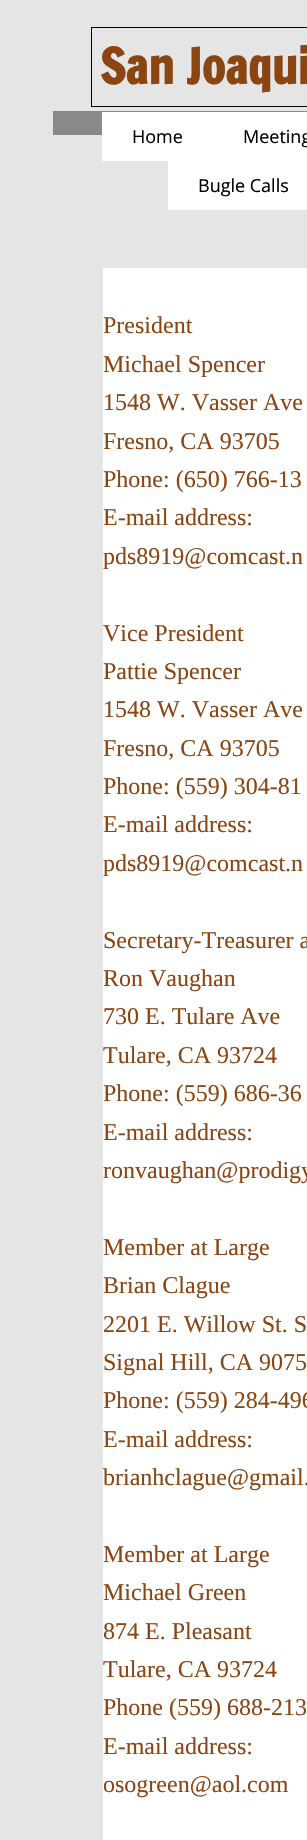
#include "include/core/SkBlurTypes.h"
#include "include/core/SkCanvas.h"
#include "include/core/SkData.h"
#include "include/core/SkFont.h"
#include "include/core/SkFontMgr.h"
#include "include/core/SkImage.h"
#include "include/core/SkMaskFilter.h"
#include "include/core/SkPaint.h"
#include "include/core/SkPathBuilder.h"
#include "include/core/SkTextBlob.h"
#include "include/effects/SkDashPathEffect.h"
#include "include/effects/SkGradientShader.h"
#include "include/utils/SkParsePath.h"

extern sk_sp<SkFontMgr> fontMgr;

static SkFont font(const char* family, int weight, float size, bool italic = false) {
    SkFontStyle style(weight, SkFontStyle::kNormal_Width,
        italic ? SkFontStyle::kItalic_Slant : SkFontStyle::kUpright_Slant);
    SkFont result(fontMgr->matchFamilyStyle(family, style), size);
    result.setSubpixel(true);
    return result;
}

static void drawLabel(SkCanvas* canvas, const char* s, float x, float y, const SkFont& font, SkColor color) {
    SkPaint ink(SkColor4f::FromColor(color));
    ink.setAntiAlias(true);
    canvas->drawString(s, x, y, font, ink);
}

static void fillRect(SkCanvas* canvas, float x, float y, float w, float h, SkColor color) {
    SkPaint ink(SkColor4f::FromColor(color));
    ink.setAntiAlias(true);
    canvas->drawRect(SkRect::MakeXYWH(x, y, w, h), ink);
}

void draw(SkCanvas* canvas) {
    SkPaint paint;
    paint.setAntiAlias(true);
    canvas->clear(0xFFE5E5E5);
    paint.setStroke(true);
    paint.setStrokeWidth(1);
    paint.setColor(0xFF000000);
    canvas->drawRect(SkRect::MakeXYWH(91.5f, 27.5f, 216, 79), paint);
    SkFont font1 = font("Francois One", 700, 48);
    drawLabel(canvas, "San Joaqui", 100, 84, font1, 0xFF8B4513);
    fillRect(canvas, 53, 111, 254, 24, 0xFF898989);
    fillRect(canvas, 102, 112, 205, 49, 0xFFFFFFFF);
    SkFont font2 = font("Open Sans", 400, 18);
    drawLabel(canvas, "Home", 132, 143, font2, 0xFF000000);
    drawLabel(canvas, "Meeting", 243, 143, font2, 0xFF000000);
    fillRect(canvas, 168, 161, 139, 49, 0xFFFFFFFF);
    drawLabel(canvas, "Bugle Calls", 198, 192, font2, 0xFF000000);
    fillRect(canvas, 103, 268, 204, 1572, 0xFFFFFFFF);
    SkFont font3 = font("Liberation Serif", 400, 24);
    drawLabel(canvas, "President", 103, 333, font3, 0xFF8B4513);
    drawLabel(canvas, "Michael Spencer", 103, 372, font3, 0xFF8B4513);
    drawLabel(canvas, "1548 W. Vasser Ave", 103, 410, font3, 0xFF8B4513);
    drawLabel(canvas, "Fresno, CA 93705", 103, 449, font3, 0xFF8B4513);
    drawLabel(canvas, "Phone: (650) 766-13", 103, 487, font3, 0xFF8B4513);
    drawLabel(canvas, "E-mail address:", 103, 525, font3, 0xFF8B4513);
    drawLabel(canvas, "pds8919@comcast.n", 103, 564, font3, 0xFF8B4513);
    drawLabel(canvas, "Vice President", 103, 641, font3, 0xFF8B4513);
    drawLabel(canvas, "Pattie Spencer", 103, 679, font3, 0xFF8B4513);
    drawLabel(canvas, "1548 W. Vasser Ave", 103, 717, font3, 0xFF8B4513);
    drawLabel(canvas, "Fresno, CA 93705", 103, 756, font3, 0xFF8B4513);
    drawLabel(canvas, "Phone: (559) 304-81", 103, 794, font3, 0xFF8B4513);
    drawLabel(canvas, "E-mail address:", 103, 832, font3, 0xFF8B4513);
    drawLabel(canvas, "pds8919@comcast.n", 103, 871, font3, 0xFF8B4513);
    drawLabel(canvas, "Secretary-Treasurer a", 103, 948, font3, 0xFF8B4513);
    drawLabel(canvas, "Ron Vaughan", 103, 986, font3, 0xFF8B4513);
    drawLabel(canvas, "730 E. Tulare Ave", 103, 1024, font3, 0xFF8B4513);
    drawLabel(canvas, "Tulare, CA 93724", 103, 1063, font3, 0xFF8B4513);
    drawLabel(canvas, "Phone: (559) 686-36", 103, 1101, font3, 0xFF8B4513);
    drawLabel(canvas, "E-mail address:", 103, 1140, font3, 0xFF8B4513);
    drawLabel(canvas, "ronvaughan@prodigy", 103, 1178, font3, 0xFF8B4513);
    drawLabel(canvas, "Member at Large", 103, 1255, font3, 0xFF8B4513);
    drawLabel(canvas, "Brian Clague", 103, 1293, font3, 0xFF8B4513);
    drawLabel(canvas, "2201 E. Willow St. S", 103, 1332, font3, 0xFF8B4513);
    drawLabel(canvas, "Signal Hill, CA 9075", 103, 1370, font3, 0xFF8B4513);
    drawLabel(canvas, "Phone: (559) 284-496", 103, 1408, font3, 0xFF8B4513);
    drawLabel(canvas, "E-mail address:", 103, 1447, font3, 0xFF8B4513);
    drawLabel(canvas, "brianhclague@gmail.", 103, 1485, font3, 0xFF8B4513);
    drawLabel(canvas, "Member at Large", 103, 1562, font3, 0xFF8B4513);
    drawLabel(canvas, "Michael Green", 103, 1600, font3, 0xFF8B4513);
    drawLabel(canvas, "874 E. Pleasant", 103, 1639, font3, 0xFF8B4513);
    drawLabel(canvas, "Tulare, CA 93724", 103, 1677, font3, 0xFF8B4513);
    drawLabel(canvas, "Phone (559) 688-213", 103, 1715, font3, 0xFF8B4513);
    drawLabel(canvas, "E-mail address:", 103, 1754, font3, 0xFF8B4513);
    drawLabel(canvas, "osogreen@aol.com", 103, 1792, font3, 0xFF8B4513);
}
